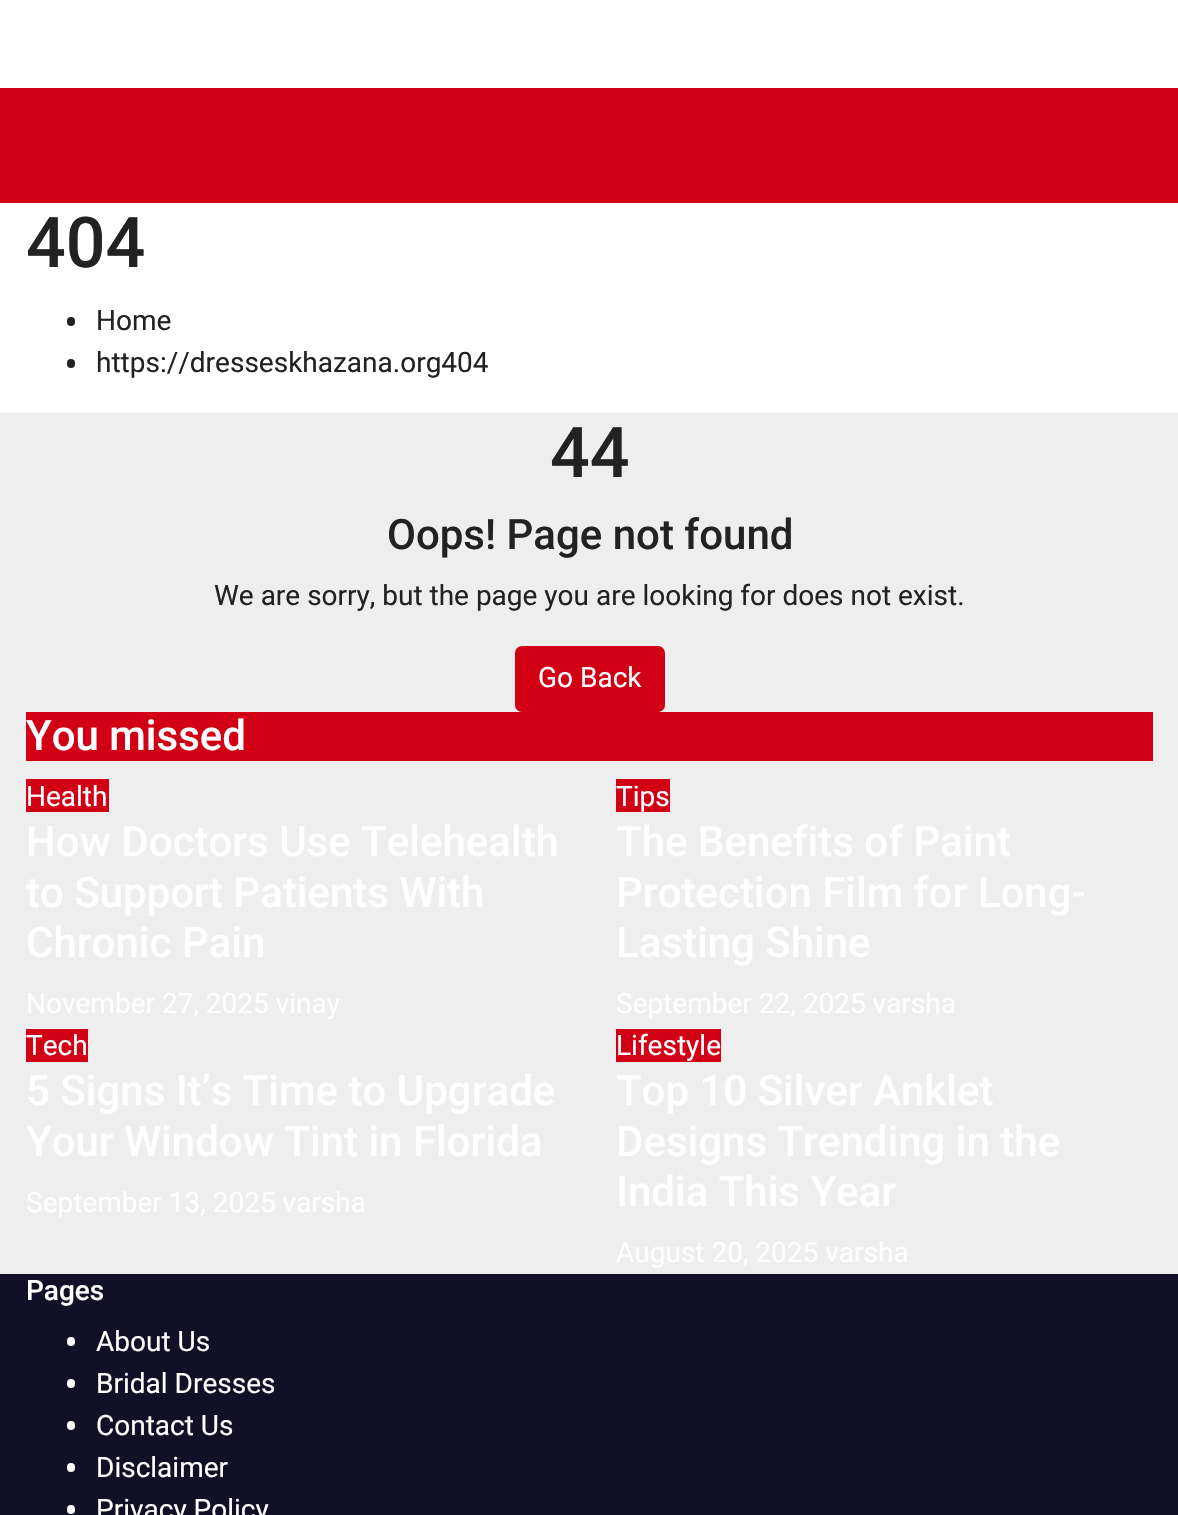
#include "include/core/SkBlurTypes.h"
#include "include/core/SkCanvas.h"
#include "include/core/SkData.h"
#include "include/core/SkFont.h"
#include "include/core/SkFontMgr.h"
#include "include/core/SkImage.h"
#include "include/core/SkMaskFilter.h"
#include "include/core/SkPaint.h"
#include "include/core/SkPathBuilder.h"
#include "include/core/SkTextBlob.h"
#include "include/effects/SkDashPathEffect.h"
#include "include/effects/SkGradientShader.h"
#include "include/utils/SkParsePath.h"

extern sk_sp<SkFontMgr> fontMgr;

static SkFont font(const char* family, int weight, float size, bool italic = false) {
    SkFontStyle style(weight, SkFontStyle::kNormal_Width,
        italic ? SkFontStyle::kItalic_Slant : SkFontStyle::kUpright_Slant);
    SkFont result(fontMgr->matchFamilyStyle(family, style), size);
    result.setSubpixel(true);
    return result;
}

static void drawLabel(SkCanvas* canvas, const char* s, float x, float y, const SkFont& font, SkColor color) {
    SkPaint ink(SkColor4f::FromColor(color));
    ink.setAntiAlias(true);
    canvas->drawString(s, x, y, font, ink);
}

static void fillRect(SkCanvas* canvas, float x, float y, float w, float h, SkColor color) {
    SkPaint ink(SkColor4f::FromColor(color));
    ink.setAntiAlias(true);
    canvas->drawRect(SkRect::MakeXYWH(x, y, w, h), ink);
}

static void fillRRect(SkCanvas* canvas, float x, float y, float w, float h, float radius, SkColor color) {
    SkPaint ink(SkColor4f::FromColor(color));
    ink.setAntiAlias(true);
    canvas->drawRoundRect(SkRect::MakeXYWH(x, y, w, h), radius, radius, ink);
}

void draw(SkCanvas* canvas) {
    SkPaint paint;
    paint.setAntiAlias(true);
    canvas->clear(0xFFEEEEEE);
    fillRect(canvas, 0, 0, 1178, 88, 0xFFFFFFFF);
    fillRect(canvas, 0, 88, 1178, 115, 0xFFD10014);
    fillRect(canvas, 0, 203, 1178, 210, 0xFFFFFFFF);
    SkFont font1 = font("Roboto", 500, 70);
    drawLabel(canvas, "404", 26, 267, font1, 0xFF222222);
    fillRRect(canvas, 67, 317, 8, 9, 4, 0xFF222222);
    SkFont font2 = font("Roboto", 400, 28);
    drawLabel(canvas, "Home", 96, 330, font2, 0xFF222222);
    fillRRect(canvas, 67, 359, 8, 9, 4, 0xFF222222);
    drawLabel(canvas, "https://dresseskhazana.org404", 96, 372, font2, 0xFF222222);
    drawLabel(canvas, "44", 550, 477, font1, 0xFF222222);
    SkFont font3 = font("Roboto", 500, 42);
    drawLabel(canvas, "Oops! Page not found", 387, 549, font3, 0xFF222222);
    drawLabel(canvas, "We are sorry, but the page you are looking for does not exist.", 214, 605, font2, 0xFF222222);
    paint.setColor(0xFFD10014);
    canvas->drawRoundRect(SkRect::MakeXYWH(516, 647, 148, 64), 6, 6, paint);
    paint.setStroke(true);
    paint.setStrokeWidth(2);
    canvas->drawRoundRect(SkRect::MakeXYWH(516, 647, 148, 64), 6, 6, paint);
    drawLabel(canvas, "Go Back", 538, 687, font2, 0xFFFFFFFF);
    fillRect(canvas, 26, 712, 1127, 49, 0xFFD10014);
    drawLabel(canvas, "You missed", 26, 750, font3, 0xFFFFFFFF);
    fillRect(canvas, 26, 779, 83, 33, 0xFFD10014);
    drawLabel(canvas, "Health", 26, 806, font2, 0xFFFFFFFF);
    drawLabel(canvas, "How Doctors Use Telehealth", 26, 856, font3, 0xFFFFFFFF);
    drawLabel(canvas, "to Support Patients With", 26, 907, font3, 0xFFFFFFFF);
    drawLabel(canvas, "Chronic Pain", 26, 957, font3, 0xFFFFFFFF);
    drawLabel(canvas, "November 27, 2025 vinay", 26, 1013, font2, 0xFFFFFFFF);
    fillRect(canvas, 616, 779, 54, 33, 0xFFD10014);
    drawLabel(canvas, "Tips", 616, 806, font2, 0xFFFFFFFF);
    drawLabel(canvas, "The Benefits of Paint", 616, 856, font3, 0xFFFFFFFF);
    drawLabel(canvas, "Protection Film for Long-", 616, 907, font3, 0xFFFFFFFF);
    drawLabel(canvas, "Lasting Shine", 616, 957, font3, 0xFFFFFFFF);
    drawLabel(canvas, "September 22, 2025 varsha", 616, 1013, font2, 0xFFFFFFFF);
    fillRect(canvas, 26, 1029, 62, 33, 0xFFD10014);
    drawLabel(canvas, "Tech", 26, 1055, font2, 0xFFFFFFFF);
    drawLabel(canvas, "5 Signs It’s Time to Upgrade", 26, 1105, font3, 0xFFFFFFFF);
    drawLabel(canvas, "Your Window Tint in Florida", 26, 1156, font3, 0xFFFFFFFF);
    drawLabel(canvas, "September 13, 2025 varsha", 26, 1212, font2, 0xFFFFFFFF);
    fillRect(canvas, 616, 1029, 105, 33, 0xFFD10014);
    drawLabel(canvas, "Lifestyle", 616, 1055, font2, 0xFFFFFFFF);
    drawLabel(canvas, "Top 10 Silver Anklet", 616, 1105, font3, 0xFFFFFFFF);
    drawLabel(canvas, "Designs Trending in the", 616, 1156, font3, 0xFFFFFFFF);
    drawLabel(canvas, "India This Year", 616, 1206, font3, 0xFFFFFFFF);
    drawLabel(canvas, "August 20, 2025 varsha", 616, 1262, font2, 0xFFFFFFFF);
    fillRect(canvas, 0, 1274, 1178, 241, 0xFF121026);
    SkFont font4 = font("Roboto", 500, 28);
    drawLabel(canvas, "Pages", 26, 1300, font4, 0xFFFFFFFF);
    fillRRect(canvas, 67, 1337, 8, 9, 4, 0xFFFFFFFF);
    drawLabel(canvas, "About Us", 96, 1351, font2, 0xFFFFFFFF);
    fillRRect(canvas, 67, 1379, 8, 9, 4, 0xFFFFFFFF);
    drawLabel(canvas, "Bridal Dresses", 96, 1393, font2, 0xFFFFFFFF);
    fillRRect(canvas, 67, 1421, 8, 9, 4, 0xFFFFFFFF);
    drawLabel(canvas, "Contact Us", 96, 1435, font2, 0xFFFFFFFF);
    fillRRect(canvas, 67, 1463, 8, 9, 4, 0xFFFFFFFF);
    drawLabel(canvas, "Disclaimer", 96, 1477, font2, 0xFFFFFFFF);
    fillRRect(canvas, 67, 1505, 8, 9, 4, 0xFFFFFFFF);
    drawLabel(canvas, "Privacy Policy", 96, 1519, font2, 0xFFFFFFFF);
}
